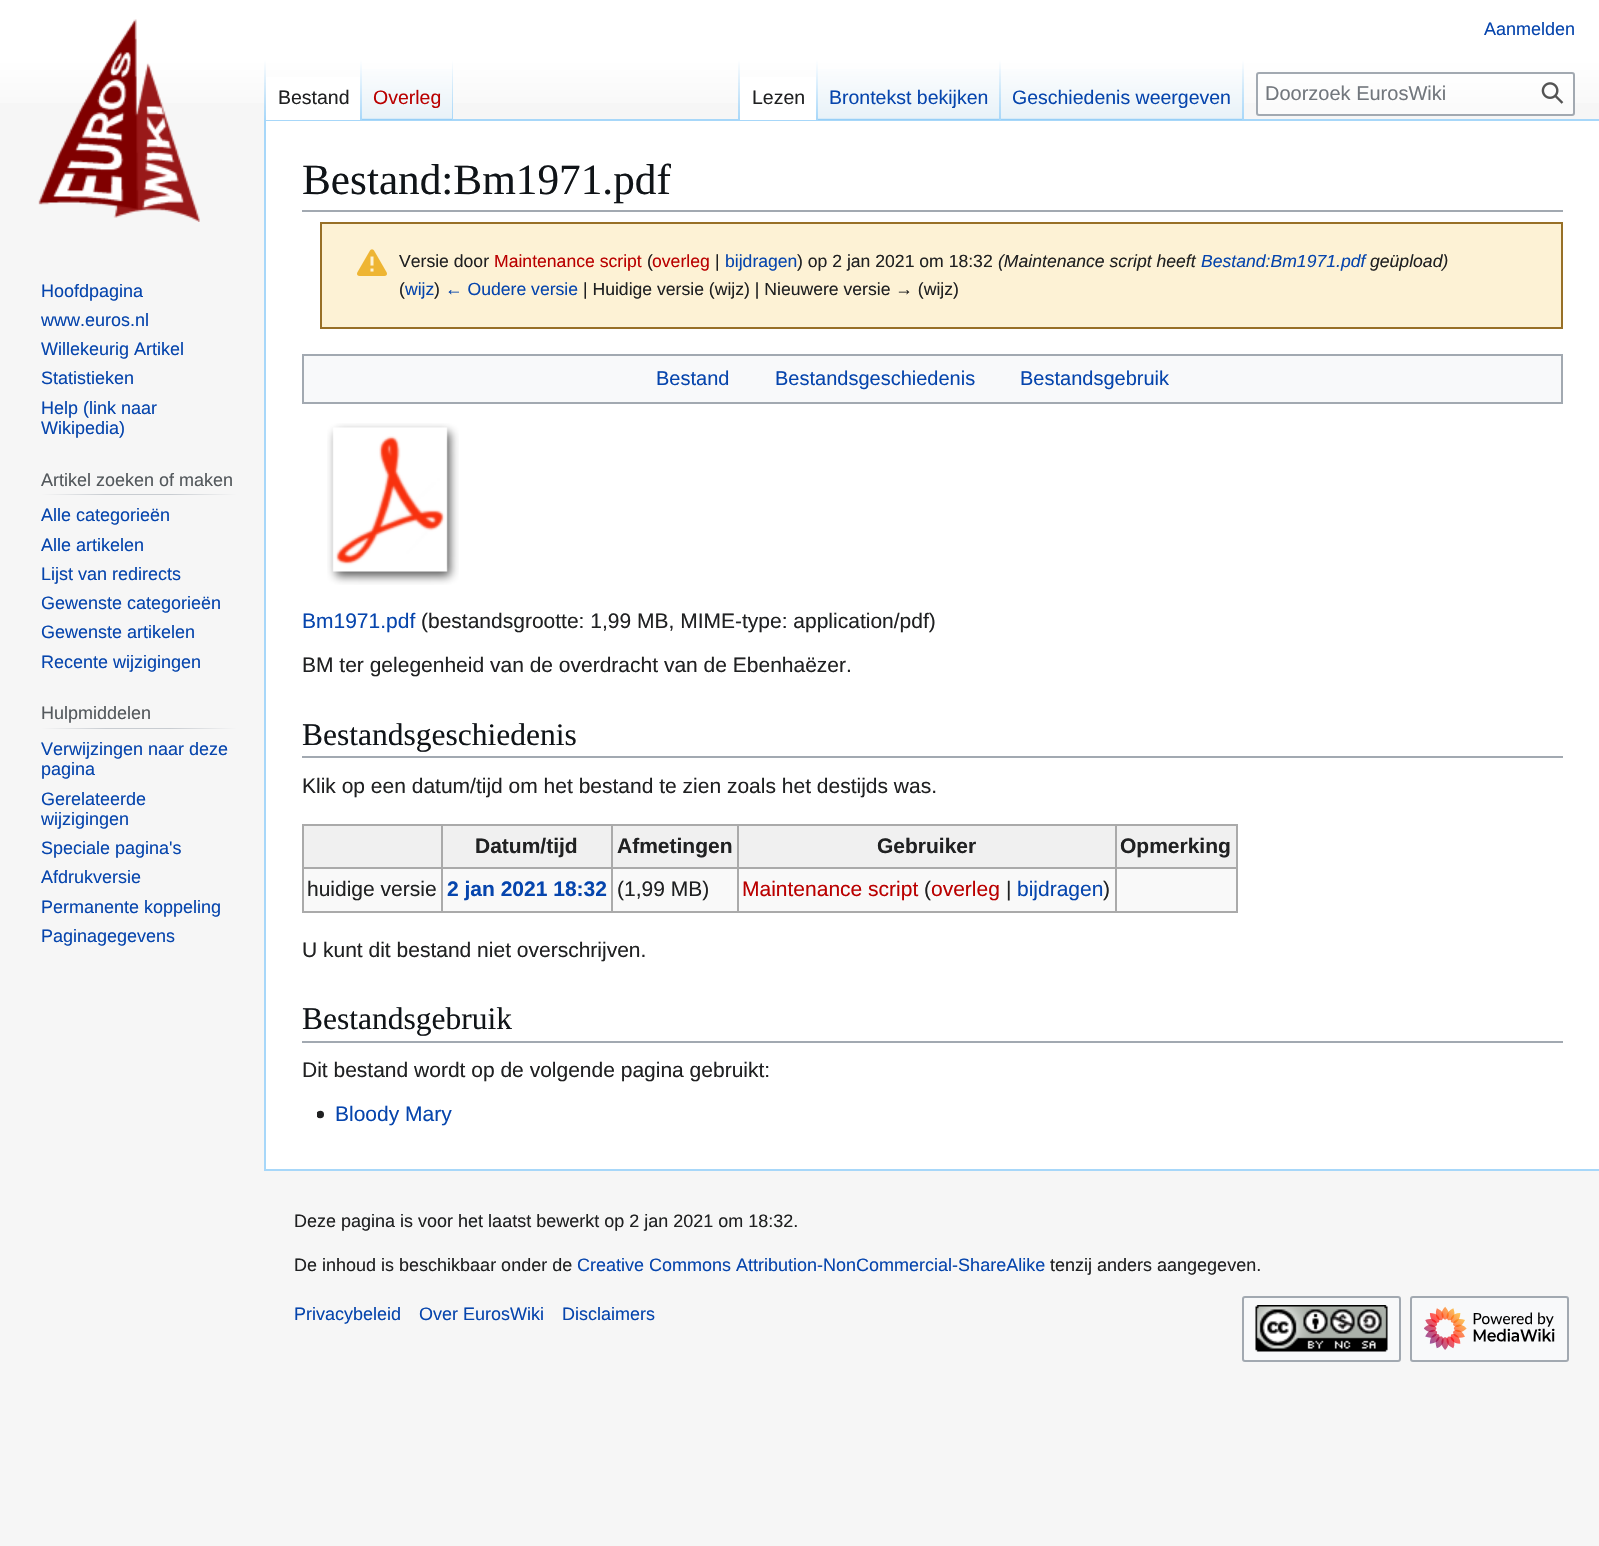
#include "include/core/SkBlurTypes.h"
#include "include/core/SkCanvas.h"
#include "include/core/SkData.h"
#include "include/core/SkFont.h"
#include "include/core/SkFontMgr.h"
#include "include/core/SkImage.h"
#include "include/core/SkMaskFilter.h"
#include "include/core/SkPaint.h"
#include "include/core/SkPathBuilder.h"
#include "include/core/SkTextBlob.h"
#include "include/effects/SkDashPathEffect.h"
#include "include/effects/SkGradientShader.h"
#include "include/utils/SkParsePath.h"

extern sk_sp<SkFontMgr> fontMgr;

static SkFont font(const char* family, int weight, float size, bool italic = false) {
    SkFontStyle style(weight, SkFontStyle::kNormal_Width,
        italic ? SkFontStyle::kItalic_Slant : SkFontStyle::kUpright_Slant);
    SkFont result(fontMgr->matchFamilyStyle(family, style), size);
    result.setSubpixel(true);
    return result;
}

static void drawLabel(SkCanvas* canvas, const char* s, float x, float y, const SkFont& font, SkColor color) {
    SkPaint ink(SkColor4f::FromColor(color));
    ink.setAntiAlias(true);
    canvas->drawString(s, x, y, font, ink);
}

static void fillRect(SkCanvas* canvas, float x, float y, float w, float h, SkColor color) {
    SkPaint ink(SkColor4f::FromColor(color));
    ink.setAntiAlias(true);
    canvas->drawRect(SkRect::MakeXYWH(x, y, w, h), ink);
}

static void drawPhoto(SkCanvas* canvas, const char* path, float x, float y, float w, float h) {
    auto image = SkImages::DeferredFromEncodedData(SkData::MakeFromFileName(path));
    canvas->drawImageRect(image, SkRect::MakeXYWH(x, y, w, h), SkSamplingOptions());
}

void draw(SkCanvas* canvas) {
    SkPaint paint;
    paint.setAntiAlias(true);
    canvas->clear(0xFFF6F6F6);
    {
        const SkColor colors[] = {0xFFFFFFFF, 0xFFF6F6F6};
        const float stops[] = {0.5f, 1};
        const SkPoint ends[] = {{800, 0}, {800, 120}};
        paint.setShader(SkGradientShader::MakeLinear(ends, colors, stops, 2, SkTileMode::kClamp));
        paint.setAlpha(255);
    }
    canvas->drawRect(SkRect::MakeXYWH(0, 0, 1599, 103), paint);
    SkFont font1 = font("Liberation Sans", 400, 18);
    drawLabel(canvas, "Aanmelden", 1484, 35, font1, 0xFF0645AD);
    fillRect(canvas, 264, 119, 1335, 2, 0xFFA7D7F9);
    fillRect(canvas, 264, 1169, 1335, 2, 0xFFA7D7F9);
    fillRect(canvas, 264, 119, 2, 1051, 0xFFA7D7F9);
    {
        const SkColor colors[] = {0x00A7D7F9, 0xFFA7D7F9};
        const float stops[] = {0, 1};
        const SkPoint ends[] = {{265, 60}, {265, 120}};
        paint.setShader(SkGradientShader::MakeLinear(ends, colors, stops, 2, SkTileMode::kClamp));
        paint.setAlpha(255);
    }
    canvas->drawRect(SkRect::MakeXYWH(264, 60, 2, 60), paint);
    fillRect(canvas, 266, 77, 94, 43, 0xFFFFFFFF);
    {
        const SkColor colors[] = {0xFFFFFFFF, 0xFFA7D7F9};
        const float stops[] = {0, 1};
        const SkPoint ends[] = {{361, 60}, {361, 120}};
        paint.setShader(SkGradientShader::MakeLinear(ends, colors, stops, 2, SkTileMode::kClamp));
        paint.setAlpha(255);
    }
    canvas->drawRect(SkRect::MakeXYWH(360, 60, 2, 60), paint);
    SkFont font2 = font("Liberation Sans", 400, 19.5f);
    drawLabel(canvas, "Bestand", 278, 104, font2, 0xFF202122);
    {
        const SkColor colors[] = {0xFF77C1F6, 0xFFE8F2F8, 0xFFFFFFFF};
        const float stops[] = {0, 0.03f, 1};
        const SkPoint ends[] = {{407, 120}, {407, 60}};
        paint.setShader(SkGradientShader::MakeLinear(ends, colors, stops, 3, SkTileMode::kClamp));
        paint.setAlpha(255);
    }
    canvas->drawRect(SkRect::MakeXYWH(362, 69, 91, 51), paint);
    {
        const SkColor colors[] = {0x00A7D7F9, 0xFFA7D7F9};
        const float stops[] = {0, 1};
        const SkPoint ends[] = {{452, 60}, {452, 120}};
        paint.setShader(SkGradientShader::MakeLinear(ends, colors, stops, 2, SkTileMode::kClamp));
        paint.setAlpha(255);
    }
    canvas->drawRect(SkRect::MakeXYWH(452, 60, 1, 60), paint);
    drawLabel(canvas, "Overleg", 373, 104, font2, 0xFFBA0000);
    {
        const SkColor colors[] = {0x00A7D7F9, 0xFFA7D7F9};
        const float stops[] = {0, 1};
        const SkPoint ends[] = {{739, 60}, {739, 120}};
        paint.setShader(SkGradientShader::MakeLinear(ends, colors, stops, 2, SkTileMode::kClamp));
        paint.setAlpha(255);
    }
    canvas->drawRect(SkRect::MakeXYWH(738, 60, 2, 60), paint);
    fillRect(canvas, 740, 77, 76, 43, 0xFFFFFFFF);
    {
        const SkColor colors[] = {0xFFFFFFFF, 0xFFA7D7F9};
        const float stops[] = {0, 1};
        const SkPoint ends[] = {{817, 60}, {817, 120}};
        paint.setShader(SkGradientShader::MakeLinear(ends, colors, stops, 2, SkTileMode::kClamp));
        paint.setAlpha(255);
    }
    canvas->drawRect(SkRect::MakeXYWH(816, 60, 2, 60), paint);
    drawLabel(canvas, "Lezen", 752, 104, font2, 0xFF202122);
    {
        const SkColor colors[] = {0xFF77C1F6, 0xFFE8F2F8, 0xFFFFFFFF};
        const float stops[] = {0, 0.03f, 1};
        const SkPoint ends[] = {{909, 120}, {909, 60}};
        paint.setShader(SkGradientShader::MakeLinear(ends, colors, stops, 3, SkTileMode::kClamp));
        paint.setAlpha(255);
    }
    canvas->drawRect(SkRect::MakeXYWH(818, 69, 183, 51), paint);
    {
        const SkColor colors[] = {0x00A7D7F9, 0xFFA7D7F9};
        const float stops[] = {0, 1};
        const SkPoint ends[] = {{1000, 60}, {1000, 120}};
        paint.setShader(SkGradientShader::MakeLinear(ends, colors, stops, 2, SkTileMode::kClamp));
        paint.setAlpha(255);
    }
    canvas->drawRect(SkRect::MakeXYWH(999, 60, 2, 60), paint);
    drawLabel(canvas, "Brontekst bekijken", 829, 104, font2, 0xFF0645AD);
    {
        const SkColor colors[] = {0xFF77C1F6, 0xFFE8F2F8, 0xFFFFFFFF};
        const float stops[] = {0, 0.03f, 1};
        const SkPoint ends[] = {{1122, 120}, {1122, 60}};
        paint.setShader(SkGradientShader::MakeLinear(ends, colors, stops, 3, SkTileMode::kClamp));
        paint.setAlpha(255);
    }
    canvas->drawRect(SkRect::MakeXYWH(1001, 69, 243, 51), paint);
    {
        const SkColor colors[] = {0x00A7D7F9, 0xFFA7D7F9};
        const float stops[] = {0, 1};
        const SkPoint ends[] = {{1243, 60}, {1243, 120}};
        paint.setShader(SkGradientShader::MakeLinear(ends, colors, stops, 2, SkTileMode::kClamp));
        paint.setAlpha(255);
    }
    canvas->drawRect(SkRect::MakeXYWH(1242, 60, 2, 60), paint);
    drawLabel(canvas, "Geschiedenis weergeven", 1012, 104, font2, 0xFF0645AD);
    paint.setShader(nullptr);
    paint.setColor(0x80FFFFFF);
    canvas->drawRoundRect(SkRect::MakeXYWH(1257, 73, 317, 42), 2, 2, paint);
    paint.setStroke(true);
    paint.setStrokeWidth(2);
    paint.setColor(0xFFA2A9B1);
    canvas->drawRoundRect(SkRect::MakeXYWH(1257, 73, 317, 42), 2, 2, paint);
    SkFont font3 = font("Liberation Sans", 400, 20);
    drawLabel(canvas, "Doorzoek EurosWiki", 1265, 100, font3, 0xFF72777D);
    drawPhoto(canvas, "assets/img1.png", 1541, 82, 23, 22);
    drawPhoto(canvas, "assets/img2.png", 38, 19, 162, 203);
    drawLabel(canvas, "Hoofdpagina", 41, 297, font1, 0xFF0645AD);
    drawLabel(canvas, "www.euros.nl", 41, 326, font1, 0xFF0645AD);
    drawLabel(canvas, "Willekeurig Artikel", 41, 355, font1, 0xFF0645AD);
    drawLabel(canvas, "Statistieken", 41, 384, font1, 0xFF0645AD);
    drawLabel(canvas, "Help (link naar", 41, 414, font1, 0xFF0645AD);
    drawLabel(canvas, "Wikipedia)", 41, 434, font1, 0xFF0645AD);
    paint.setStroke(false);
    {
        const SkColor colors[] = {0xFFF6F6F6, 0xFFC8CCD1, 0xFFC8CCD1, 0xFFF6F6F6};
        const float stops[] = {0, 0.33f, 0.66f, 1};
        const SkPoint ends[] = {{41, 494}, {237, 494}};
        paint.setShader(SkGradientShader::MakeLinear(ends, colors, stops, 4, SkTileMode::kClamp));
        paint.setAlpha(255);
    }
    canvas->drawRect(SkRect::MakeXYWH(41, 494, 196, 1), paint);
    drawLabel(canvas, "Artikel zoeken of maken", 41, 486, font1, 0xFF54595D);
    drawLabel(canvas, "Alle categorieën", 41, 521, font1, 0xFF0645AD);
    drawLabel(canvas, "Alle artikelen", 41, 551, font1, 0xFF0645AD);
    drawLabel(canvas, "Lijst van redirects", 41, 580, font1, 0xFF0645AD);
    drawLabel(canvas, "Gewenste categorieën", 41, 609, font1, 0xFF0645AD);
    drawLabel(canvas, "Gewenste artikelen", 41, 638, font1, 0xFF0645AD);
    drawLabel(canvas, "Recente wijzigingen", 41, 668, font1, 0xFF0645AD);
    {
        const SkColor colors[] = {0xFFF6F6F6, 0xFFC8CCD1, 0xFFC8CCD1, 0xFFF6F6F6};
        const float stops[] = {0, 0.33f, 0.66f, 1};
        const SkPoint ends[] = {{41, 728}, {237, 728}};
        paint.setShader(SkGradientShader::MakeLinear(ends, colors, stops, 4, SkTileMode::kClamp));
        paint.setAlpha(255);
    }
    canvas->drawRect(SkRect::MakeXYWH(41, 728, 196, 1), paint);
    drawLabel(canvas, "Hulpmiddelen", 41, 719, font1, 0xFF54595D);
    drawLabel(canvas, "Verwijzingen naar deze", 41, 755, font1, 0xFF0645AD);
    drawLabel(canvas, "pagina", 41, 775, font1, 0xFF0645AD);
    drawLabel(canvas, "Gerelateerde", 41, 805, font1, 0xFF0645AD);
    drawLabel(canvas, "wijzigingen", 41, 825, font1, 0xFF0645AD);
    drawLabel(canvas, "Speciale pagina's", 41, 854, font1, 0xFF0645AD);
    drawLabel(canvas, "Afdrukversie", 41, 883, font1, 0xFF0645AD);
    drawLabel(canvas, "Permanente koppeling", 41, 913, font1, 0xFF0645AD);
    drawLabel(canvas, "Paginagegevens", 41, 942, font1, 0xFF0645AD);
    fillRect(canvas, 266, 121, 1333, 1048, 0xFFFFFFFF);
    fillRect(canvas, 302, 210, 1261, 2, 0xFFA2A9B1);
    SkFont font4 = font("Liberation Serif", 400, 43.25f);
    drawLabel(canvas, "Bestand:Bm1971.pdf", 302, 194, font4, 0xFF101418);
    paint.setShader(nullptr);
    paint.setColor(0xFFFDF2D5);
    canvas->drawRect(SkRect::MakeXYWH(321, 223, 1241, 105), paint);
    paint.setStroke(true);
    paint.setColor(0xFF987027);
    canvas->drawRect(SkRect::MakeXYWH(321, 223, 1241, 105), paint);
    drawPhoto(canvas, "assets/img3.png", 357, 249, 30, 27);
    SkFont font5 = font("Liberation Sans", 400, 17.6f);
    drawLabel(canvas, "Versie door", 399, 267, font5, 0xFF202122);
    drawLabel(canvas, "Maintenance script", 494, 267, font5, 0xFFBA0000);
    drawLabel(canvas, "(", 647, 267, font5, 0xFF202122);
    drawLabel(canvas, "overleg", 652, 267, font5, 0xFFBA0000);
    drawLabel(canvas, "|", 715, 267, font5, 0xFF202122);
    drawLabel(canvas, "bijdragen", 725, 267, font5, 0xFF0645AD);
    drawLabel(canvas, ") op 2 jan 2021 om 18:32", 797, 267, font5, 0xFF202122);
    SkFont font6 = font("Liberation Sans", 400, 17.6f, true);
    drawLabel(canvas, "(Maintenance script heeft", 998, 267, font6, 0xFF202122);
    drawLabel(canvas, "Bestand:Bm1971.pdf", 1201, 267, font6, 0xFF0645AD);
    drawLabel(canvas, "geüpload)", 1370, 267, font6, 0xFF202122);
    drawLabel(canvas, "(", 399, 295, font5, 0xFF202122);
    drawLabel(canvas, "wijz", 405, 295, font5, 0xFF0645AD);
    drawLabel(canvas, ")", 434, 295, font5, 0xFF202122);
    drawLabel(canvas, "← Oudere versie", 445, 295, font5, 0xFF0645AD);
    drawLabel(canvas, "| Huidige versie (wijz) | Nieuwere versie → (wijz)", 583, 295, font5, 0xFF202122);
    paint.setStroke(false);
    paint.setColor(0xFFF8F9FA);
    canvas->drawRect(SkRect::MakeXYWH(303, 355, 1259, 48), paint);
    paint.setStroke(true);
    paint.setColor(0xFFA2A9B1);
    canvas->drawRect(SkRect::MakeXYWH(303, 355, 1259, 48), paint);
    drawLabel(canvas, "Bestand", 656, 385, font3, 0xFF0645AD);
    drawLabel(canvas, "Bestandsgeschiedenis", 775, 385, font3, 0xFF0645AD);
    drawLabel(canvas, "Bestandsgebruik", 1020, 385, font3, 0xFF0645AD);
    drawPhoto(canvas, "assets/img4.png", 327, 423, 132, 162);
    SkFont font7 = font("Liberation Sans", 400, 21);
    drawLabel(canvas, "Bm1971.pdf", 302, 628, font7, 0xFF0645AD);
    drawLabel(canvas, "(bestandsgrootte: 1,99 MB, MIME-type: application/pdf)", 421, 628, font7, 0xFF202122);
    drawLabel(canvas, "BM ter gelegenheid van de overdracht van de Ebenhaëzer.", 302, 672, font7, 0xFF202122);
    fillRect(canvas, 302, 756, 1261, 2, 0xFFA2A9B1);
    SkFont font8 = font("Liberation Serif", 400, 31.5f);
    drawLabel(canvas, "Bestandsgeschiedenis", 302, 745, font8, 0xFF101418);
    drawLabel(canvas, "Klik op een datum/tijd om het bestand te zien zoals het destijds was.", 302, 793, font7, 0xFF202122);
    fillRect(canvas, 304, 869, 932, 42, 0xFFF9F9F9);
    fillRect(canvas, 302, 824, 936, 2, 0xFFAAAAAA);
    fillRect(canvas, 1236, 824, 2, 88, 0xFFAAAAAA);
    fillRect(canvas, 302, 911, 936, 2, 0xFFAAAAAA);
    fillRect(canvas, 302, 824, 2, 88, 0xFFAAAAAA);
    fillRect(canvas, 304, 826, 137, 41, 0xFFF0F0F0);
    fillRect(canvas, 443, 826, 168, 41, 0xFFF0F0F0);
    fillRect(canvas, 1115, 867, 123, 2, 0xFFAAAAAA);
    fillRect(canvas, 1115, 867, 2, 45, 0xFFAAAAAA);
    fillRect(canvas, 737, 867, 379, 2, 0xFFAAAAAA);
    fillRect(canvas, 737, 867, 2, 45, 0xFFAAAAAA);
    fillRect(canvas, 611, 867, 127, 2, 0xFFAAAAAA);
    fillRect(canvas, 611, 867, 2, 45, 0xFFAAAAAA);
    fillRect(canvas, 441, 867, 171, 2, 0xFFAAAAAA);
    fillRect(canvas, 441, 867, 2, 45, 0xFFAAAAAA);
    fillRect(canvas, 302, 867, 141, 2, 0xFFAAAAAA);
    fillRect(canvas, 441, 824, 2, 45, 0xFFAAAAAA);
    SkFont font9 = font("Liberation Sans", 700, 21);
    drawLabel(canvas, "Datum/tijd", 475, 853, font9, 0xFF202122);
    fillRect(canvas, 613, 826, 124, 41, 0xFFF0F0F0);
    fillRect(canvas, 611, 824, 2, 45, 0xFFAAAAAA);
    drawLabel(canvas, "Afmetingen", 617, 853, font9, 0xFF202122);
    fillRect(canvas, 739, 826, 376, 41, 0xFFF0F0F0);
    fillRect(canvas, 737, 824, 2, 45, 0xFFAAAAAA);
    drawLabel(canvas, "Gebruiker", 877, 853, font9, 0xFF202122);
    fillRect(canvas, 1117, 826, 119, 41, 0xFFF0F0F0);
    fillRect(canvas, 1115, 824, 2, 45, 0xFFAAAAAA);
    drawLabel(canvas, "Opmerking", 1120, 853, font9, 0xFF202122);
    drawLabel(canvas, "huidige versie", 307, 896, font7, 0xFF202122);
    drawLabel(canvas, "2 jan 2021 18:32", 447, 896, font9, 0xFF0645AD);
    drawLabel(canvas, "(1,99 MB)", 617, 896, font7, 0xFF202122);
    drawLabel(canvas, "Maintenance script", 742, 896, font7, 0xFFBA0000);
    drawLabel(canvas, "(", 924, 896, font7, 0xFF202122);
    drawLabel(canvas, "overleg", 931, 896, font7, 0xFFBA0000);
    drawLabel(canvas, "|", 1006, 896, font7, 0xFF202122);
    drawLabel(canvas, "bijdragen", 1017, 896, font7, 0xFF0645AD);
    drawLabel(canvas, ")", 1103, 896, font7, 0xFF202122);
    drawLabel(canvas, "U kunt dit bestand niet overschrijven.", 302, 957, font7, 0xFF202122);
    fillRect(canvas, 302, 1041, 1261, 2, 0xFFA2A9B1);
    drawLabel(canvas, "Bestandsgebruik", 302, 1029, font8, 0xFF101418);
    drawLabel(canvas, "Dit bestand wordt op de volgende pagina gebruikt:", 302, 1077, font7, 0xFF202122);
    drawPhoto(canvas, "assets/img5.png", 317, 1110, 7, 9);
    drawLabel(canvas, "Bloody Mary", 335, 1121, font7, 0xFF0645AD);
    drawLabel(canvas, "Deze pagina is voor het laatst bewerkt op 2 jan 2021 om 18:32.", 294, 1227, font1, 0xFF202122);
    drawLabel(canvas, "De inhoud is beschikbaar onder de", 294, 1271, font1, 0xFF202122);
    drawLabel(canvas, "Creative Commons Attribution-NonCommercial-ShareAlike", 577, 1271, font1, 0xFF0645AD);
    drawLabel(canvas, "tenzij anders aangegeven.", 1050, 1271, font1, 0xFF202122);
    drawLabel(canvas, "Privacybeleid", 294, 1320, font1, 0xFF0645AD);
    drawLabel(canvas, "Over EurosWiki", 419, 1320, font1, 0xFF0645AD);
    drawLabel(canvas, "Disclaimers", 562, 1320, font1, 0xFF0645AD);
    paint.setStroke(false);
    paint.setColor(0xFFF8F9FA);
    canvas->drawRoundRect(SkRect::MakeXYWH(1243, 1297, 157, 64), 2, 2, paint);
    paint.setStroke(true);
    paint.setColor(0xFFA2A9B1);
    canvas->drawRoundRect(SkRect::MakeXYWH(1243, 1297, 157, 64), 2, 2, paint);
    drawPhoto(canvas, "assets/img6.png", 1255, 1305, 133, 47);
    paint.setStroke(false);
    paint.setColor(0xFFF8F9FA);
    canvas->drawRoundRect(SkRect::MakeXYWH(1411, 1297, 157, 64), 2, 2, paint);
    paint.setStroke(true);
    paint.setColor(0xFFA2A9B1);
    canvas->drawRoundRect(SkRect::MakeXYWH(1411, 1297, 157, 64), 2, 2, paint);
    drawPhoto(canvas, "assets/img7.png", 1424, 1306, 131, 44);
}
